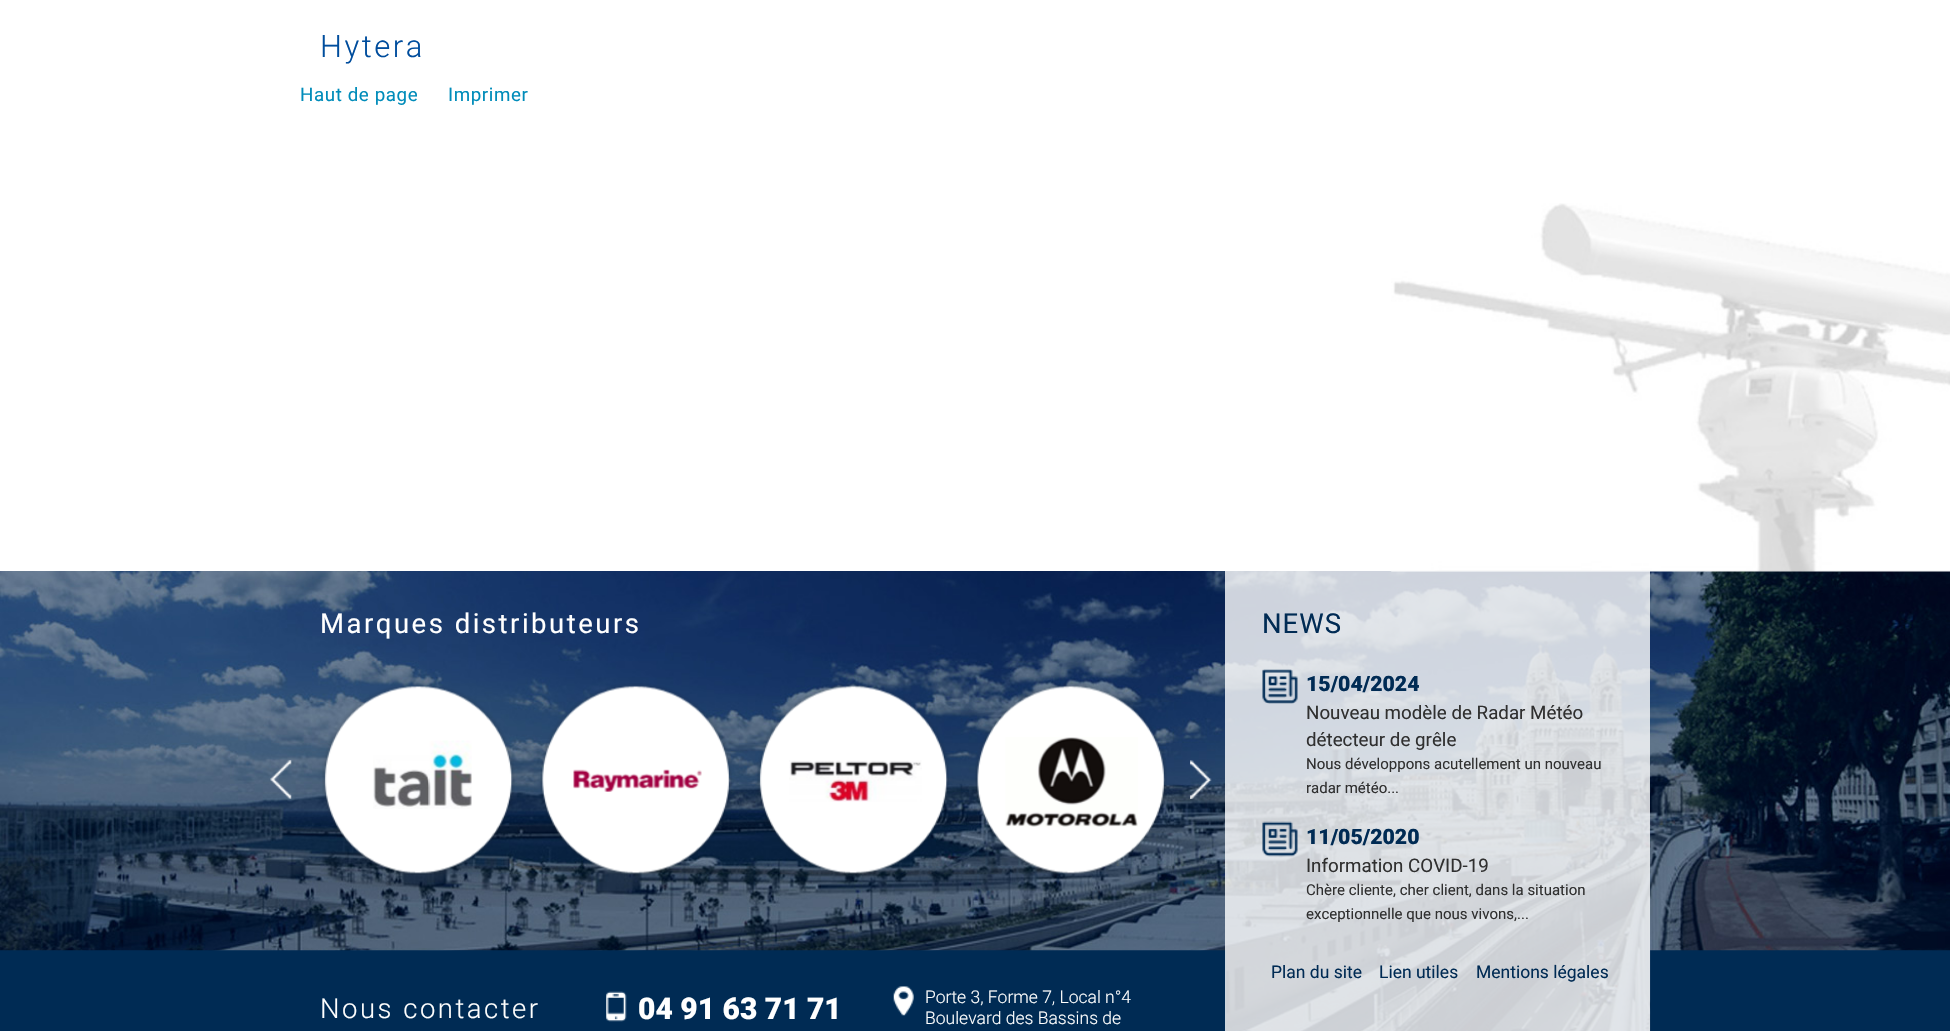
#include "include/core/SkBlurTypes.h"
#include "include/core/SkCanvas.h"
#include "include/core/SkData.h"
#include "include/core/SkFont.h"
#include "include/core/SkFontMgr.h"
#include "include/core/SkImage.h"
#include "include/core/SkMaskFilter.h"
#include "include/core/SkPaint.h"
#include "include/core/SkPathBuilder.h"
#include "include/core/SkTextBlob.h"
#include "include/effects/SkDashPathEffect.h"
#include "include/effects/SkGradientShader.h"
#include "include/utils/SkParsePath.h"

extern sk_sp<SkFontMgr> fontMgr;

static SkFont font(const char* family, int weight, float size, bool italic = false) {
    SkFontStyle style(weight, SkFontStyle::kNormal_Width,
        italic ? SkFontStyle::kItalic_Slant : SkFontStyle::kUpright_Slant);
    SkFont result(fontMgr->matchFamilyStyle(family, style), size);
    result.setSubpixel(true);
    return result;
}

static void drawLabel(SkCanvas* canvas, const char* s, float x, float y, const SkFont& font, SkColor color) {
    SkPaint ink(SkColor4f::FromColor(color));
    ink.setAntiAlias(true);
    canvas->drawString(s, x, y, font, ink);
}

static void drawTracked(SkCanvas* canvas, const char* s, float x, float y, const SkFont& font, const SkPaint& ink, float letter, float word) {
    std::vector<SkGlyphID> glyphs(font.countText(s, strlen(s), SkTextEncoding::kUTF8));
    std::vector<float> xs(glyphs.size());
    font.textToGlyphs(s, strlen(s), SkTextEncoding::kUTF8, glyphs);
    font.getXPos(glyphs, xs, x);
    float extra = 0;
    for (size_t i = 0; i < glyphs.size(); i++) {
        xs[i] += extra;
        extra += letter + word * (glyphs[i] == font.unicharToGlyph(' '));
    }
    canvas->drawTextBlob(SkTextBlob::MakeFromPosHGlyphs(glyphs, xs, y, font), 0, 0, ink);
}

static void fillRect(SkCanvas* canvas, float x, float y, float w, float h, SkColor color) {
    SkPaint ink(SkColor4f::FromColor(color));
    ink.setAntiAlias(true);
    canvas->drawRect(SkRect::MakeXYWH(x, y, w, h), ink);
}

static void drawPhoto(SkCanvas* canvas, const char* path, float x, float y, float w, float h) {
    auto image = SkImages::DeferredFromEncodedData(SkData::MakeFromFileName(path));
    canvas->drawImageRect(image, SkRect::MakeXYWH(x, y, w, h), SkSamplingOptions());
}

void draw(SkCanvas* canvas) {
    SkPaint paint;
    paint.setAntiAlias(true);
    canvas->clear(0xFFFFFFFF);
    SkFont font1 = font("Roboto", 300, 31);
    paint.setColor(0xFF004D9D);
    drawTracked(canvas, "Hytera", 320, 57, font1, paint, 2.5f, 0);
    SkFont font2 = font("Roboto", 400, 18.75f);
    paint.setColor(0xFF008CBA);
    drawTracked(canvas, "Haut de page", 300, 101, font2, paint, 0.6f, 0);
    drawTracked(canvas, "Imprimer", 448, 101, font2, paint, 0.6f, 0);
    drawPhoto(canvas, "assets/img17.png", 0, 571, 1950, 460);
    drawPhoto(canvas, "assets/img1.png", 1391, 203, 559, 369);
    drawPhoto(canvas, "assets/img2.png", 0, 950, 1950, 81);
    SkFont font3 = font("Roboto", 400, 27.5f);
    paint.setColor(0xFFFFFFFF);
    drawTracked(canvas, "Marques distributeurs", 320, 633, font3, paint, 2.5f, 0);
    drawPhoto(canvas, "assets/img3.png", 322, 683, 193, 192);
    drawPhoto(canvas, "assets/img4.png", 373, 740, 99, 69);
    drawPhoto(canvas, "assets/img5.png", 540, 683, 192, 193);
    drawPhoto(canvas, "assets/img6.png", 573, 769, 129, 23);
    drawPhoto(canvas, "assets/img7.png", 757, 684, 192, 190);
    drawPhoto(canvas, "assets/img8.png", 789, 760, 133, 42);
    drawPhoto(canvas, "assets/img9.png", 975, 683, 192, 193);
    drawPhoto(canvas, "assets/img10.png", 1005, 737, 133, 90);
    drawPhoto(canvas, "assets/img11.png", 270, 760, 22, 39);
    drawPhoto(canvas, "assets/img12.png", 1190, 760, 22, 39);
    SkFont font4 = font("Roboto", 300, 27.5f);
    drawTracked(canvas, "Nous contacter", 320, 1018, font4, paint, 2.5f, 0);
    drawPhoto(canvas, "assets/img13.png", 606, 991, 21, 31);
    SkFont font5 = font("Roboto", 900, 30);
    drawLabel(canvas, "04 91 63 71 71", 638, 1019, font5, 0xFFFFFFFF);
    drawPhoto(canvas, "assets/img14.png", 893, 986, 21, 30);
    SkFont font6 = font("Roboto", 300, 17.5f);
    drawLabel(canvas, "Porte 3, Forme 7, Local n°4", 925, 1003, font6, 0xFFFFFFFF);
    drawLabel(canvas, "Boulevard des Bassins de", 925, 1024, font6, 0xFFFFFFFF);
    fillRect(canvas, 1225, 571, 425, 460, 0xCCFFFFFF);
    paint.setColor(0xFF002B54);
    drawTracked(canvas, "NEWS", 1262, 633, font3, paint, 1, 0);
    drawPhoto(canvas, "assets/img15.png", 1262, 669, 36, 35);
    SkFont font7 = font("Roboto", 900, 21.25f);
    drawLabel(canvas, "15/04/2024", 1306, 691, font7, 0xFF002B54);
    drawLabel(canvas, "Nouveau modèle de Radar Météo", 1306, 719, font2, 0xFF303030);
    drawLabel(canvas, "détecteur de grêle", 1306, 746, font2, 0xFF303030);
    SkFont font8 = font("Roboto", 400, 15);
    drawLabel(canvas, "Nous développons acutellement un nouveau", 1306, 769, font8, 0xFF303030);
    drawLabel(canvas, "radar météo...", 1306, 793, font8, 0xFF303030);
    drawPhoto(canvas, "assets/img16.png", 1262, 821, 36, 36);
    drawLabel(canvas, "11/05/2020", 1306, 844, font7, 0xFF002B54);
    drawLabel(canvas, "Information COVID-19", 1306, 872, font2, 0xFF303030);
    drawLabel(canvas, "Chère cliente, cher client, dans la situation", 1306, 895, font8, 0xFF303030);
    drawLabel(canvas, "exceptionnelle que nous vivons,...", 1306, 919, font8, 0xFF303030);
    SkFont font9 = font("Roboto", 400, 17.5f);
    drawLabel(canvas, "Plan du site", 1271, 978, font9, 0xFF002B54);
    drawLabel(canvas, "Lien utiles", 1379, 978, font9, 0xFF002B54);
    drawLabel(canvas, "Mentions légales", 1476, 978, font9, 0xFF002B54);
}
